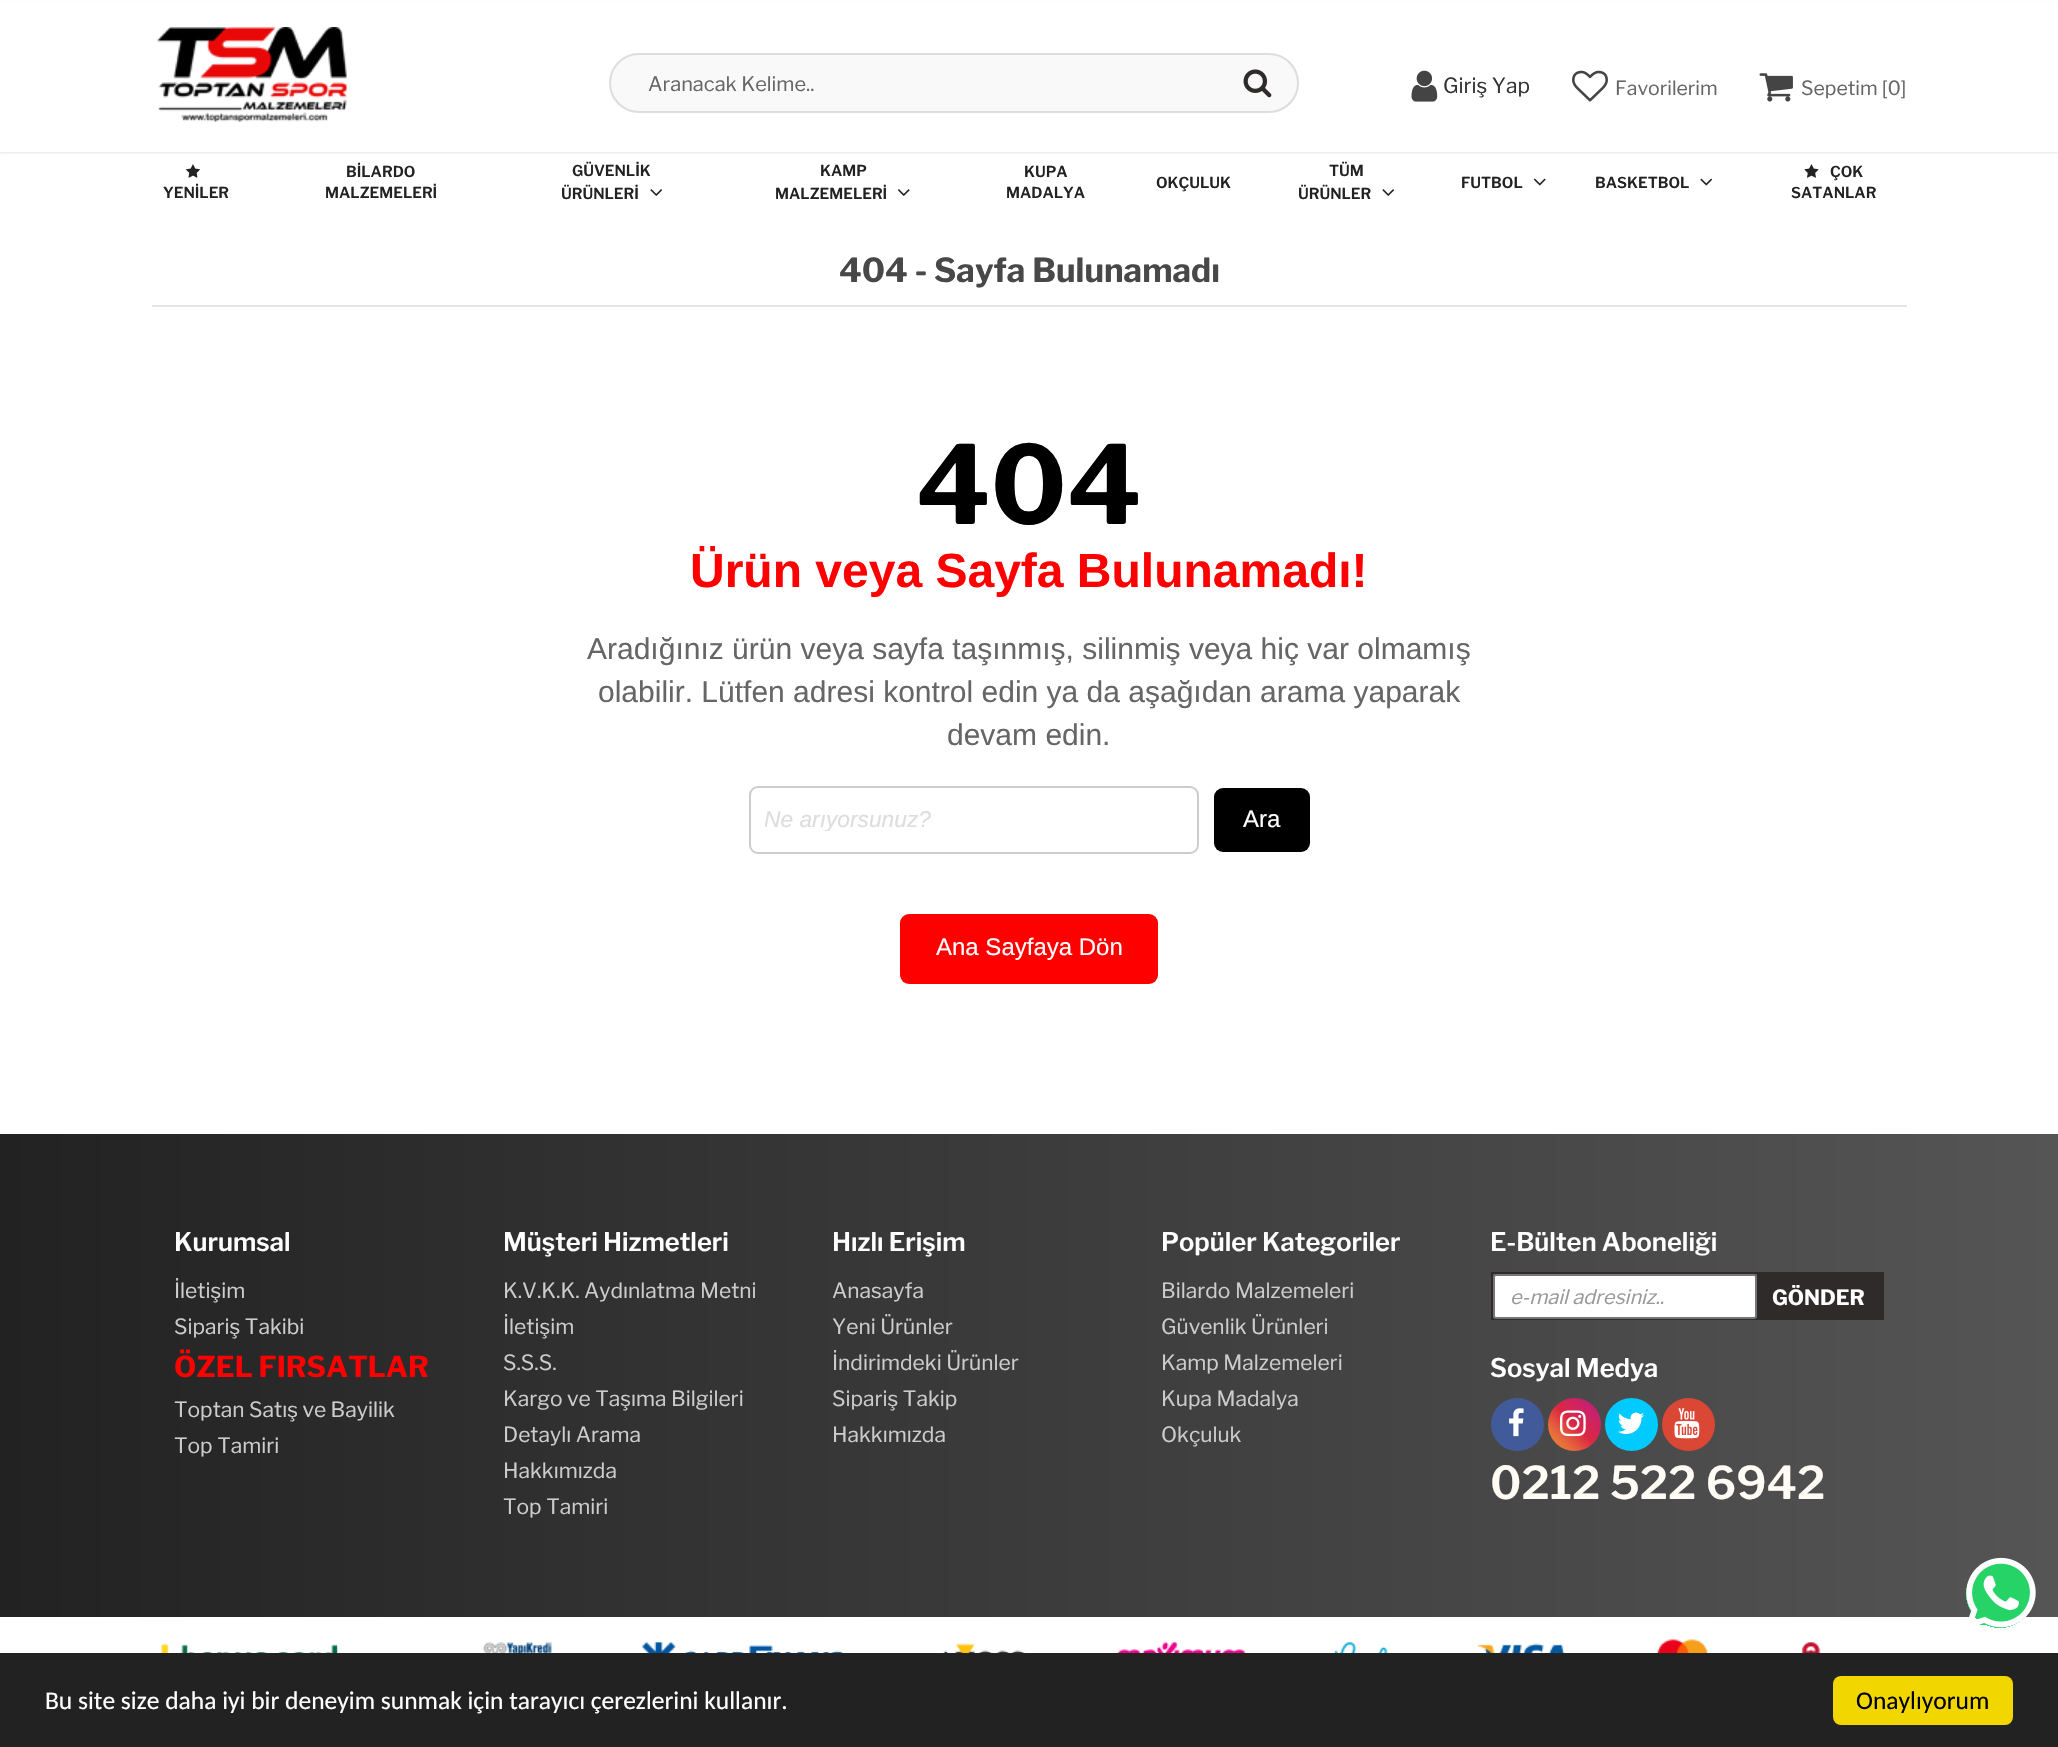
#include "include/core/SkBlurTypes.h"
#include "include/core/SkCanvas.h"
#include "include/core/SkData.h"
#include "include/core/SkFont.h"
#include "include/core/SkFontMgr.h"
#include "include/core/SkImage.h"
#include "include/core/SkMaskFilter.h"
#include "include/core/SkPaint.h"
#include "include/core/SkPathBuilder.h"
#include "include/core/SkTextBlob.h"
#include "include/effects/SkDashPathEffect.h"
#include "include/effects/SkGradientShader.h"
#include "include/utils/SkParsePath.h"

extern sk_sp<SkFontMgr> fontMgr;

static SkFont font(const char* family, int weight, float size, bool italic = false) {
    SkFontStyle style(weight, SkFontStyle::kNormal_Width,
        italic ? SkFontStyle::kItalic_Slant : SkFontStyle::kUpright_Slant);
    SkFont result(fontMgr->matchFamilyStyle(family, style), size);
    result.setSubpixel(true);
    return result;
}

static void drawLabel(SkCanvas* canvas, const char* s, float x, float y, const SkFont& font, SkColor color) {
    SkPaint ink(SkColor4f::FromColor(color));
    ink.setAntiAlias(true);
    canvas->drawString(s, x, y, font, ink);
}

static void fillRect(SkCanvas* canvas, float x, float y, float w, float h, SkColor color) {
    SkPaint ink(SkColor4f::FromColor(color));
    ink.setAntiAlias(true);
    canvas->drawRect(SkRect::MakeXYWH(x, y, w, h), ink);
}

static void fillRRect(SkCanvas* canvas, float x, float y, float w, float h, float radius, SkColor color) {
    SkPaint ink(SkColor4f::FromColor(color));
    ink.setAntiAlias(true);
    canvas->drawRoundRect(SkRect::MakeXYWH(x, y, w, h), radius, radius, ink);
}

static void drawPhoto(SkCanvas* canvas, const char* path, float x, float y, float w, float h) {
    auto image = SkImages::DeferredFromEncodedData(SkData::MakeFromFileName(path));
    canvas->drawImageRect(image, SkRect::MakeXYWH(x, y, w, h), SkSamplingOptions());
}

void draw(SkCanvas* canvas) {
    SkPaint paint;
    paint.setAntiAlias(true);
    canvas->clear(0xFFFFFFFF);
    paint.setColor(0x1A000000);
    paint.setMaskFilter(SkMaskFilter::MakeBlur(kNormal_SkBlurStyle, 1));
    canvas->drawRect(SkRect::MakeXYWH(0, 2, 2058, 151), paint);
    paint.setMaskFilter(nullptr);
    fillRect(canvas, 0, 1, 2058, 151, 0xFFFFFFFF);
    drawPhoto(canvas, "assets/img1.png", 157, 27, 190, 95);
    paint.setColor(0xFFF9F9F9);
    canvas->drawRoundRect(SkRect::MakeXYWH(610, 54, 688, 58), 29, 29, paint);
    paint.setStroke(true);
    paint.setStrokeWidth(2);
    paint.setColor(0xFFDDDDDD);
    canvas->drawRoundRect(SkRect::MakeXYWH(610, 54, 688, 58), 29, 29, paint);
    SkFont font1 = font("Libre Franklin", 400, 20);
    drawLabel(canvas, "Aranacak Kelime..", 648, 91, font1, 0xFF666666);
    drawPhoto(canvas, "assets/img2.png", 1243, 69, 29, 29);
    drawPhoto(canvas, "assets/img3.png", 1411, 70, 27, 32);
    SkFont font2 = font("Libre Franklin", 400, 21);
    drawLabel(canvas, "Giriş Yap", 1443, 93, font2, 0xFF333333);
    drawPhoto(canvas, "assets/img4.png", 1572, 70, 36, 32);
    SkFont font3 = font("Libre Franklin", 400, 19.5f);
    drawLabel(canvas, "Favorilerim", 1615, 95, font3, 0xFF666666);
    drawPhoto(canvas, "assets/img5.png", 1759, 73, 34, 29);
    drawLabel(canvas, "Sepetim [0]", 1801, 95, font3, 0xFF666666);
    drawPhoto(canvas, "assets/img6.png", 186, 164, 14, 14);
    SkFont font4 = font("Libre Franklin", 600, 15);
    drawLabel(canvas, "YENİLER", 163, 198, font4, 0xFF222222);
    drawLabel(canvas, "BİLARDO", 346, 177, font4, 0xFF222222);
    drawLabel(canvas, "MALZEMELERİ", 325, 198, font4, 0xFF222222);
    drawLabel(canvas, "GÜVENLİK", 572, 176, font4, 0xFF222222);
    drawLabel(canvas, "ÜRÜNLERİ", 561, 199, font4, 0xFF222222);
    drawPhoto(canvas, "assets/img7.png", 650, 189, 12, 7);
    drawLabel(canvas, "KAMP", 820, 176, font4, 0xFF222222);
    drawLabel(canvas, "MALZEMELERİ", 775, 199, font4, 0xFF222222);
    drawPhoto(canvas, "assets/img8.png", 898, 189, 12, 7);
    drawLabel(canvas, "KUPA", 1024, 177, font4, 0xFF222222);
    drawLabel(canvas, "MADALYA", 1006, 198, font4, 0xFF222222);
    drawLabel(canvas, "OKÇULUK", 1156, 188, font4, 0xFF222222);
    drawLabel(canvas, "TÜM", 1329, 176, font4, 0xFF222222);
    drawLabel(canvas, "ÜRÜNLER", 1298, 199, font4, 0xFF222222);
    drawPhoto(canvas, "assets/img7.png", 1382, 189, 12, 7);
    drawLabel(canvas, "FUTBOL", 1461, 188, font4, 0xFF222222);
    drawPhoto(canvas, "assets/img9.png", 1533, 178, 13, 8);
    drawLabel(canvas, "BASKETBOL", 1595, 188, font4, 0xFF222222);
    drawPhoto(canvas, "assets/img10.png", 1700, 178, 13, 8);
    drawPhoto(canvas, "assets/img11.png", 1804, 164, 15, 14);
    drawLabel(canvas, "ÇOK", 1830, 177, font4, 0xFF222222);
    drawLabel(canvas, "SATANLAR", 1791, 198, font4, 0xFF222222);
    fillRect(canvas, 152, 305, 1755, 2, 0xFFE5E5E5);
    SkFont font5 = font("Libre Franklin", 700, 33);
    drawLabel(canvas, "404 - Sayfa Bulunamadı", 839, 282, font5, 0xFF484848);
    SkFont font6 = font("Libre Franklin", 700, 108);
    drawLabel(canvas, "404", 916, 524, font6, 0xFF000000);
    SkFont font7 = font("Liberation Sans", 700, 48);
    drawLabel(canvas, "Ürün veya Sayfa Bulunamadı!", 690, 587, font7, 0xFFFF0000);
    SkFont font8 = font("Liberation Sans", 400, 30);
    drawLabel(canvas, "Aradığınız ürün veya sayfa taşınmış, silinmiş veya hiç var olmamış", 587, 659, font8, 0xFF666666);
    drawLabel(canvas, "olabilir. Lütfen adresi kontrol edin ya da aşağıdan arama yaparak", 598, 702, font8, 0xFF666666);
    drawLabel(canvas, "devam edin.", 947, 745, font8, 0xFF666666);
    paint.setColor(0xFFCCCCCC);
    canvas->drawRoundRect(SkRect::MakeXYWH(750, 787, 448, 66), 8, 8, paint);
    canvas->save();
    canvas->clipRect(SkRect::MakeXYWH(765, 803, 417, 28));
    SkFont font9 = font("Liberation Sans", 400, 22.75f, true);
    drawLabel(canvas, "Ne arıyorsunuz?", 764, 827, font9, 0xFFDDDDDD);
    canvas->restore();
    fillRRect(canvas, 1214, 788, 96, 64, 9, 0xFF000000);
    SkFont font10 = font("Liberation Sans", 400, 24);
    drawLabel(canvas, "Ara", 1243, 827, font10, 0xFFFFFFFF);
    fillRRect(canvas, 900, 914, 258, 70, 9, 0xFFFF0000);
    drawLabel(canvas, "Ana Sayfaya Dön", 936, 955, font10, 0xFFFFFFFF);
    paint.setStroke(false);
    {
        const SkColor colors[] = {0xFF222222, 0xFF555555};
        const float stops[] = {0, 1};
        const SkPoint ends[] = {{0, 1376}, {2058, 1376}};
        paint.setShader(SkGradientShader::MakeLinear(ends, colors, stops, 2, SkTileMode::kClamp));
        paint.setAlpha(255);
    }
    canvas->drawRect(SkRect::MakeXYWH(0, 1134, 2058, 483), paint);
    SkFont font11 = font("Libre Franklin", 600, 25.5f);
    drawLabel(canvas, "Kurumsal", 174, 1251, font11, 0xFFFFFFFF);
    drawLabel(canvas, "İletişim", 174, 1298, font2, 0xFFCCCCCC);
    drawLabel(canvas, "Sipariş Takibi", 174, 1334, font2, 0xFFCCCCCC);
    SkFont font12 = font("Libre Franklin", 700, 28.75f);
    drawLabel(canvas, "ÖZEL FIRSATLAR", 174, 1377, font12, 0xFFFF0000);
    drawLabel(canvas, "Toptan Satış ve Bayilik", 174, 1417, font2, 0xFFCCCCCC);
    drawLabel(canvas, "Top Tamiri", 174, 1453, font2, 0xFFCCCCCC);
    drawLabel(canvas, "Müşteri Hizmetleri", 503, 1251, font11, 0xFFFFFFFF);
    drawLabel(canvas, "K.V.K.K. Aydınlatma Metni", 503, 1298, font2, 0xFFCCCCCC);
    drawLabel(canvas, "İletişim", 503, 1334, font2, 0xFFCCCCCC);
    drawLabel(canvas, "S.S.S.", 503, 1370, font2, 0xFFCCCCCC);
    drawLabel(canvas, "Kargo ve Taşıma Bilgileri", 503, 1406, font2, 0xFFCCCCCC);
    drawLabel(canvas, "Detaylı Arama", 503, 1442, font2, 0xFFCCCCCC);
    drawLabel(canvas, "Hakkımızda", 503, 1478, font2, 0xFFCCCCCC);
    drawLabel(canvas, "Top Tamiri", 503, 1514, font2, 0xFFCCCCCC);
    drawLabel(canvas, "Hızlı Erişim", 832, 1251, font11, 0xFFFFFFFF);
    drawLabel(canvas, "Anasayfa", 832, 1298, font2, 0xFFCCCCCC);
    drawLabel(canvas, "Yeni Ürünler", 832, 1334, font2, 0xFFCCCCCC);
    drawLabel(canvas, "İndirimdeki Ürünler", 832, 1370, font2, 0xFFCCCCCC);
    drawLabel(canvas, "Sipariş Takip", 832, 1406, font2, 0xFFCCCCCC);
    drawLabel(canvas, "Hakkımızda", 832, 1442, font2, 0xFFCCCCCC);
    drawLabel(canvas, "Popüler Kategoriler", 1161, 1251, font11, 0xFFFFFFFF);
    drawLabel(canvas, "Bilardo Malzemeleri", 1161, 1298, font2, 0xFFCCCCCC);
    drawLabel(canvas, "Güvenlik Ürünleri", 1161, 1334, font2, 0xFFCCCCCC);
    drawLabel(canvas, "Kamp Malzemeleri", 1161, 1370, font2, 0xFFCCCCCC);
    drawLabel(canvas, "Kupa Madalya", 1161, 1406, font2, 0xFFCCCCCC);
    drawLabel(canvas, "Okçuluk", 1161, 1442, font2, 0xFFCCCCCC);
    drawLabel(canvas, "E-Bülten Aboneliği", 1490, 1251, font11, 0xFFFFFFFF);
    paint.setStroke(true);
    paint.setShader(nullptr);
    paint.setColor(0xFF2F2B2B);
    canvas->drawRect(SkRect::MakeXYWH(1492, 1273, 391, 46), paint);
    paint.setStroke(false);
    paint.setColor(0xFFFFFFFF);
    canvas->drawRoundRect(SkRect::MakeXYWH(1494, 1275, 262, 43), 2, 2, paint);
    paint.setStroke(true);
    paint.setColor(0xFF767676);
    canvas->drawRoundRect(SkRect::MakeXYWH(1494, 1275, 262, 43), 2, 2, paint);
    SkFont font13 = font("Libre Franklin", 400, 20, true);
    drawLabel(canvas, "e-mail adresiniz..", 1510, 1304, font13, 0xFF999999);
    fillRect(canvas, 1757, 1274, 125, 44, 0xFF2F2B2B);
    SkFont font14 = font("Libre Franklin", 700, 21);
    drawLabel(canvas, "GÖNDER", 1772, 1305, font14, 0xFFFFFFFF);
    drawLabel(canvas, "Sosyal Medya", 1490, 1377, font11, 0xFFFFFFFF);
    paint.setStroke(false);
    paint.setColor(0xFF415A99);
    canvas->drawCircle(1517.5f, 1424.5f, 26.5f, paint);
    drawPhoto(canvas, "assets/img12.png", 1509, 1408, 15, 29);
    {
        const SkColor colors[] = {0xFFF09433, 0xFFE6683C, 0xFFDC2743, 0xFFCC2366, 0xFFBC1888};
        const float stops[] = {0, 0.25f, 0.5f, 0.75f, 1};
        const SkPoint ends[] = {{1548, 1451}, {1601, 1398}};
        paint.setShader(SkGradientShader::MakeLinear(ends, colors, stops, 5, SkTileMode::kClamp));
        paint.setAlpha(255);
    }
    canvas->drawCircle(1574.5f, 1424.5f, 26.5f, paint);
    drawPhoto(canvas, "assets/img13.png", 1560, 1410, 26, 27);
    paint.setShader(nullptr);
    paint.setColor(0xFF00CAFF);
    canvas->drawCircle(1631.5f, 1424.5f, 26.5f, paint);
    drawPhoto(canvas, "assets/img14.png", 1618, 1412, 26, 22);
    paint.setColor(0xFFDA4735);
    canvas->drawCircle(1688.5f, 1424.5f, 26.5f, paint);
    drawPhoto(canvas, "assets/img15.png", 1674, 1408, 26, 31);
    SkFont font15 = font("Libre Franklin", 600, 45);
    drawLabel(canvas, "0212 522 6942", 1490, 1499, font15, 0xFFFFFBF5);
    drawPhoto(canvas, "assets/img16.png", 161, 1639, 1660, 14);
    {
        const SkColor colors[] = {0xFF25D366, 0x0025D366};
        const float stops[] = {0.63f, 0.63f};
        paint.setShader(SkGradientShader::MakeRadial({2000, 1594}, 54, colors, stops, 2, SkTileMode::kClamp));
        paint.setAlpha(255);
    }
    canvas->drawRect(SkRect::MakeXYWH(1966, 1563, 64, 65), paint);
    fillRect(canvas, 1980, 1622, 5, 3, 0xFF25D366);
    drawPhoto(canvas, "assets/img17.png", 1966, 1557, 70, 71);
    fillRect(canvas, 0, 1653, 2058, 94, 0xFF222222);
    SkFont font16 = font("Carlito", 400, 25.5f);
    drawLabel(canvas, "Bu site size daha iyi bir deneyim sunmak için tarayıcı çerezlerini kullanır.", 45, 1709, font16, 0xFFFFFFFF);
    fillRRect(canvas, 1833, 1676, 180, 49, 8, 0xFFF1D600);
    drawLabel(canvas, "Onaylıyorum", 1856, 1709, font16, 0xFF000000);
}
